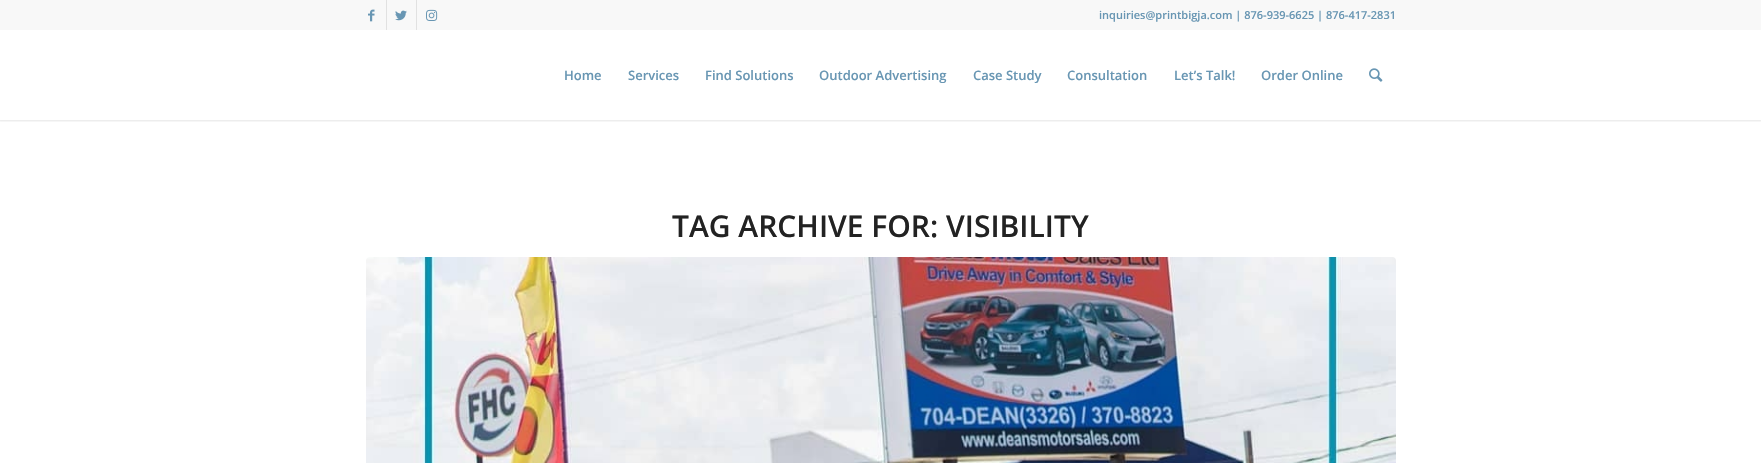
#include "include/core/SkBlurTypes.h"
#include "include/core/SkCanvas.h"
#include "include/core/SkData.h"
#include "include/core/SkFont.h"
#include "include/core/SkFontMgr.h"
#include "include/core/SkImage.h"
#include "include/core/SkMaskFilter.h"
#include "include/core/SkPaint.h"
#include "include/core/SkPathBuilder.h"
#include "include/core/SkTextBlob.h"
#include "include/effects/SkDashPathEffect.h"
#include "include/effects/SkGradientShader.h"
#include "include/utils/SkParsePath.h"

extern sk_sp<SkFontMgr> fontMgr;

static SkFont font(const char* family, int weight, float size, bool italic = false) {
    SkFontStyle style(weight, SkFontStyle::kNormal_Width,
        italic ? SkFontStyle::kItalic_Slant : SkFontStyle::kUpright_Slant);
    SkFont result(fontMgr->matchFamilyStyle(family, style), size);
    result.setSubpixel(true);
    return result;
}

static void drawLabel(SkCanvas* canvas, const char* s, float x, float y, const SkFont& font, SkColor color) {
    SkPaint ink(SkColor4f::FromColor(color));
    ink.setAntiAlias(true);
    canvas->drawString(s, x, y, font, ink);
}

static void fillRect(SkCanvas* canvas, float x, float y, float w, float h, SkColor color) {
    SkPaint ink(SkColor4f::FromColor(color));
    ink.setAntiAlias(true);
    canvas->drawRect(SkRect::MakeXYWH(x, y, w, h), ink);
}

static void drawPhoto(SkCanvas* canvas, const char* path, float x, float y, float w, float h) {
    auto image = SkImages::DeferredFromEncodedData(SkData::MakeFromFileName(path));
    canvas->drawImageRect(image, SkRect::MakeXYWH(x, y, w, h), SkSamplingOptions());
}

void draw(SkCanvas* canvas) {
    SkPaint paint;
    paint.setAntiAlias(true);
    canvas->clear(0xFFFFFFFF);
    canvas->save();
    canvas->clipRect(SkRect::MakeXYWH(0, 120, 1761, 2));
    paint.setColor(0x1A000000);
    paint.setMaskFilter(SkMaskFilter::MakeBlur(kNormal_SkBlurStyle, 1));
    canvas->drawRect(SkRect::MakeXYWH(-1, -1, 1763, 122), paint);
    paint.setMaskFilter(nullptr);
    canvas->restore();
    fillRect(canvas, 0, 0, 1761, 30, 0xFFF8F8F8);
    fillRect(canvas, 386, 0, 1, 30, 0xFFE1E1E1);
    drawPhoto(canvas, "assets/img1.png", 368, 9, 7, 13);
    fillRect(canvas, 416, 0, 1, 30, 0xFFE1E1E1);
    drawPhoto(canvas, "assets/img2.png", 395, 10, 12, 11);
    drawPhoto(canvas, "assets/img3.png", 426, 9, 12, 12);
    SkFont font1 = font("Open Sans", 600, 11);
    drawLabel(canvas, "inquiries@printbigja.com | 876-939-6625 | 876-417-2831", 1099, 19, font1, 0xFF6896B3);
    SkFont font2 = font("Open Sans", 600, 13);
    drawLabel(canvas, "Home", 564, 80, font2, 0xFF6896B3);
    drawLabel(canvas, "Services", 628, 80, font2, 0xFF6896B3);
    drawLabel(canvas, "Find Solutions", 705, 80, font2, 0xFF6896B3);
    drawLabel(canvas, "Outdoor Advertising", 819, 80, font2, 0xFF6896B3);
    drawLabel(canvas, "Case Study", 973, 80, font2, 0xFF6896B3);
    drawLabel(canvas, "Consultation", 1067, 80, font2, 0xFF6896B3);
    drawLabel(canvas, "Let’s Talk!", 1174, 80, font2, 0xFF6896B3);
    drawLabel(canvas, "Order Online", 1261, 80, font2, 0xFF6896B3);
    drawPhoto(canvas, "assets/img4.png", 1369, 68, 14, 14);
    SkFont font3 = font("Open Sans", 600, 30);
    drawLabel(canvas, "TAG ARCHIVE FOR: VISIBILITY", 672, 237, font3, 0xFF222222);
    drawPhoto(canvas, "assets/img5.png", 366, 257, 1030, 206);
}
